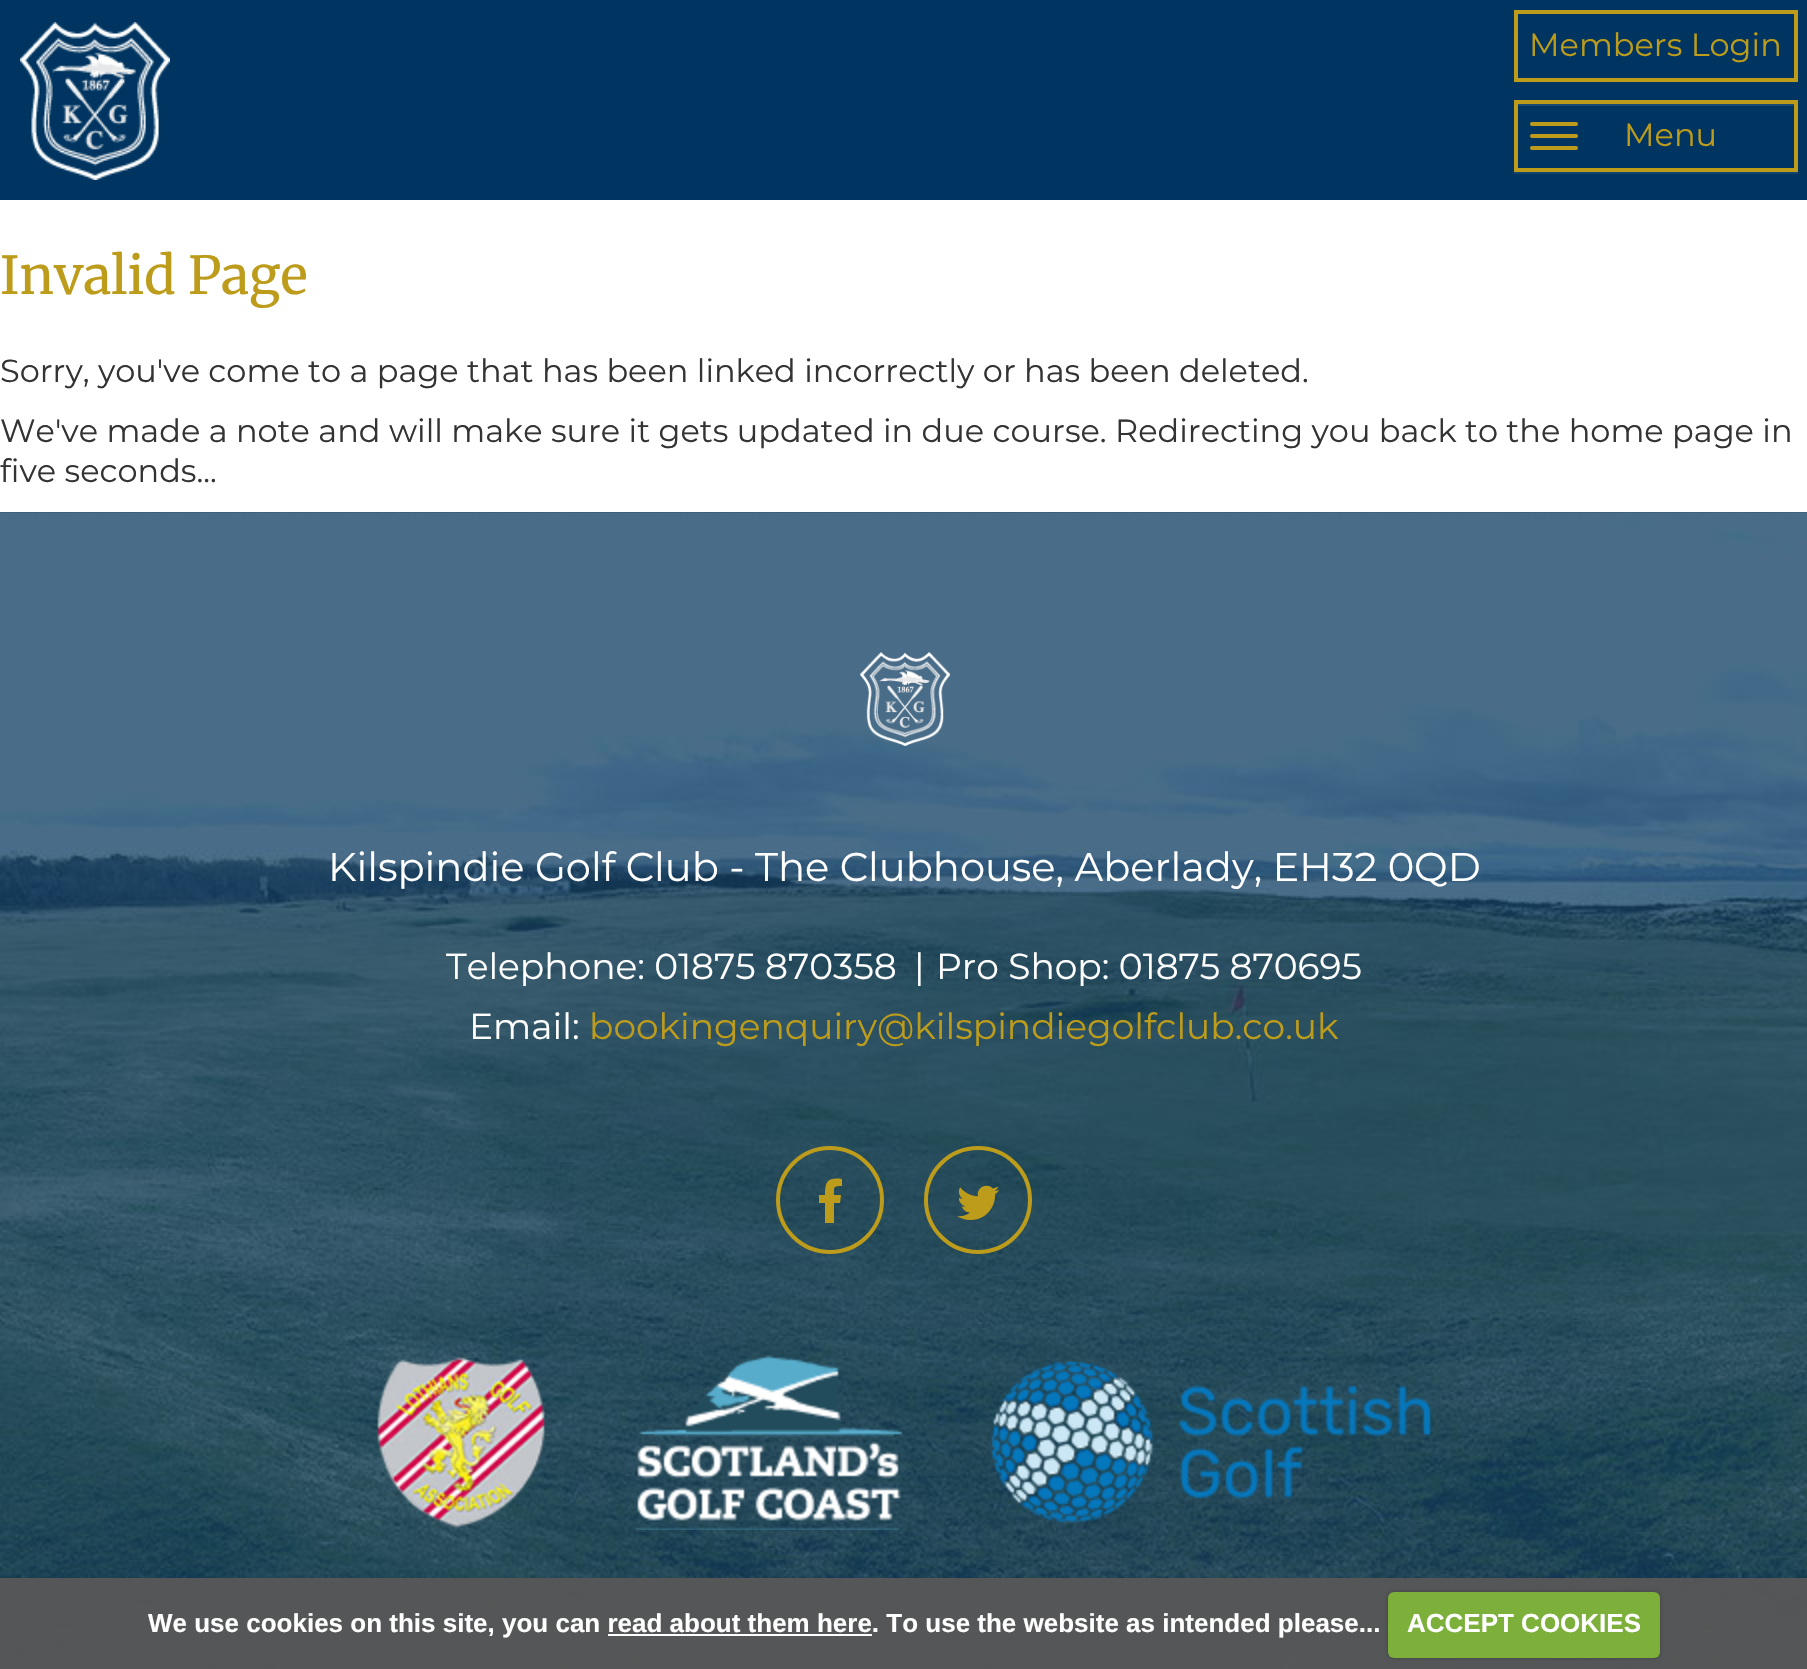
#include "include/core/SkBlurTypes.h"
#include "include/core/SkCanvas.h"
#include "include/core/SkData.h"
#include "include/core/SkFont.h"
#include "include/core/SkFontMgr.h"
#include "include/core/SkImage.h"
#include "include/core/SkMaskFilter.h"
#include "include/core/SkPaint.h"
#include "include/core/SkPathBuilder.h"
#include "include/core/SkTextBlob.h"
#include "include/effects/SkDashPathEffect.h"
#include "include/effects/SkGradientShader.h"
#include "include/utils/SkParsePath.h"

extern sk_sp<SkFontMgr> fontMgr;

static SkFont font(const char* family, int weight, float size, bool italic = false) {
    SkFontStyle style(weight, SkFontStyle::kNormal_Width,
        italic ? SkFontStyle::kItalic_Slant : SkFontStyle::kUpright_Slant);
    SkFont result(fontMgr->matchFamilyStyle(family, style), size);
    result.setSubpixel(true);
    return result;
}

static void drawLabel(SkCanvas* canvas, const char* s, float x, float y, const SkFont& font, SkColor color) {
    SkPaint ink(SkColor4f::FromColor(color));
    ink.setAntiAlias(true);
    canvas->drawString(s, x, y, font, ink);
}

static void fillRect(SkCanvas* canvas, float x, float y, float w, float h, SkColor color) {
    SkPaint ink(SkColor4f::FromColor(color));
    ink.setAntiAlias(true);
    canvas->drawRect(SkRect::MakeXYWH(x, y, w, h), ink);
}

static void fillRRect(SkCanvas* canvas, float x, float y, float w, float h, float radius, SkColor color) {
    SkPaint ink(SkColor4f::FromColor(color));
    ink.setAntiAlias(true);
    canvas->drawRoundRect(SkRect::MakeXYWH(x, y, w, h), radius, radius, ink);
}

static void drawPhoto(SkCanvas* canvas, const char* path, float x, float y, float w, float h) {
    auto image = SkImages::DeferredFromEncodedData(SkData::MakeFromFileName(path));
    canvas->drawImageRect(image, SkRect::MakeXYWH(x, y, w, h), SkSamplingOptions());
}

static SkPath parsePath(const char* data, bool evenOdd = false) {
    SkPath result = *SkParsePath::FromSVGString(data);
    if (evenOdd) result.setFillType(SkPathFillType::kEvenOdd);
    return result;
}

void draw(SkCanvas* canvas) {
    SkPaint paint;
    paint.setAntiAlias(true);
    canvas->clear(0xFFFFFFFF);
    fillRect(canvas, 0, 0, 1807, 200, 0xFF003561);
    drawPhoto(canvas, "assets/img1.png", 20, 22, 150, 158);
    paint.setStroke(true);
    paint.setStrokeWidth(4);
    paint.setColor(0xFFBD9C1B);
    canvas->drawRect(SkRect::MakeXYWH(1516, 12, 280, 68), paint);
    SkFont font1 = font("Montserrat", 400, 32);
    drawLabel(canvas, "Members Login", 1529, 56, font1, 0xFFBD9C1B);
    fillRect(canvas, 1514, 172, 284, 2, 0xFF13446D);
    fillRect(canvas, 1518, 104, 276, 2, 0xFF1A4971);
    canvas->drawRect(SkRect::MakeXYWH(1516, 102, 280, 68), paint);
    fillRRect(canvas, 1530, 122, 48, 4, 2, 0xFFBD9C1B);
    fillRRect(canvas, 1530, 134, 48, 4, 2, 0xFFBD9C1B);
    fillRRect(canvas, 1530, 146, 48, 4, 2, 0xFFBD9C1B);
    drawLabel(canvas, "Menu", 1624, 146, font1, 0xFFBD9C1B);
    SkFont font2 = font("Merriweather", 400, 52);
    drawLabel(canvas, "Invalid Page", 0, 294, font2, 0xFFBD9C1B);
    drawLabel(canvas, "Sorry, you've come to a page that has been linked incorrectly or has been deleted.", 0, 382, font1, 0xFF333333);
    drawLabel(canvas, "We've made a note and will make sure it gets updated in due course. Redirecting you back to the home page in", 0, 442, font1, 0xFF333333);
    drawLabel(canvas, "five seconds...", 0, 482, font1, 0xFF333333);
    drawPhoto(canvas, "assets/img2.png", 0, 512, 1807, 1157);
    drawPhoto(canvas, "assets/img3.png", 860, 652, 90, 94);
    SkFont font3 = font("Montserrat", 400, 40);
    drawLabel(canvas, "Kilspindie Golf Club - The Clubhouse, Aberlady, EH32 0QD", 328, 881, font3, 0xFFFFFFFF);
    SkFont font4 = font("Montserrat", 400, 36);
    drawLabel(canvas, "Telephone: 01875 870358", 446, 979, font4, 0xFFFFFFFF);
    drawLabel(canvas, "|", 914, 979, font4, 0xFFFFFFFF);
    drawLabel(canvas, "Pro Shop: 01875 870695", 936, 979, font4, 0xFFFFFFFF);
    drawLabel(canvas, "Email:", 469, 1039, font4, 0xFFFFFFFF);
    drawLabel(canvas, "bookingenquiry@kilspindiegolfclub.co.uk", 589, 1039, font4, 0xFFBD9C1B);
    canvas->drawCircle(830, 1200, 52, paint);
    paint.setStroke(false);
    canvas->drawPath(parsePath("M842 1179V1186C833 1186 834 1187 834 1195H841L840 1203H834V1223H825V1203H819V1195H825C825 1182 827 1177 842 1179Z"), paint);
    paint.setStroke(true);
    canvas->drawCircle(978, 1200, 52, paint);
    drawPhoto(canvas, "assets/img4.png", 957, 1185, 43, 35);
    fillRect(canvas, 40, 1630, 1728, 2, 0x26FFFFFF);
    drawPhoto(canvas, "assets/img5.png", 377, 1357, 168, 172);
    drawPhoto(canvas, "assets/img6.png", 636, 1355, 266, 175);
    drawPhoto(canvas, "assets/img7.png", 991, 1361, 440, 162);
    fillRect(canvas, 0, 1578, 1807, 91, 0xF2565656);
    SkFont font5 = font("Liberation Sans", 700, 26);
    drawLabel(canvas, "We use cookies on this site, you can read about them here. To use the website as intended please...", 148, 1632, font5, 0xFFFFFFFF);
    paint.setStroke(false);
    paint.setColor(0x40000000);
    paint.setMaskFilter(SkMaskFilter::MakeBlur(kNormal_SkBlurStyle, 2));
    canvas->drawRoundRect(SkRect::MakeXYWH(1388, 1592, 272, 66), 6, 6, paint);
    paint.setMaskFilter(nullptr);
    fillRRect(canvas, 1388, 1592, 272, 66, 6, 0xFF7DAF3B);
    drawLabel(canvas, "ACCEPT COOKIES", 1407, 1632, font5, 0xFFFFFFFF);
    fillRect(canvas, 608, 1634, 264, 2, 0xFFFFFFFF);
}
